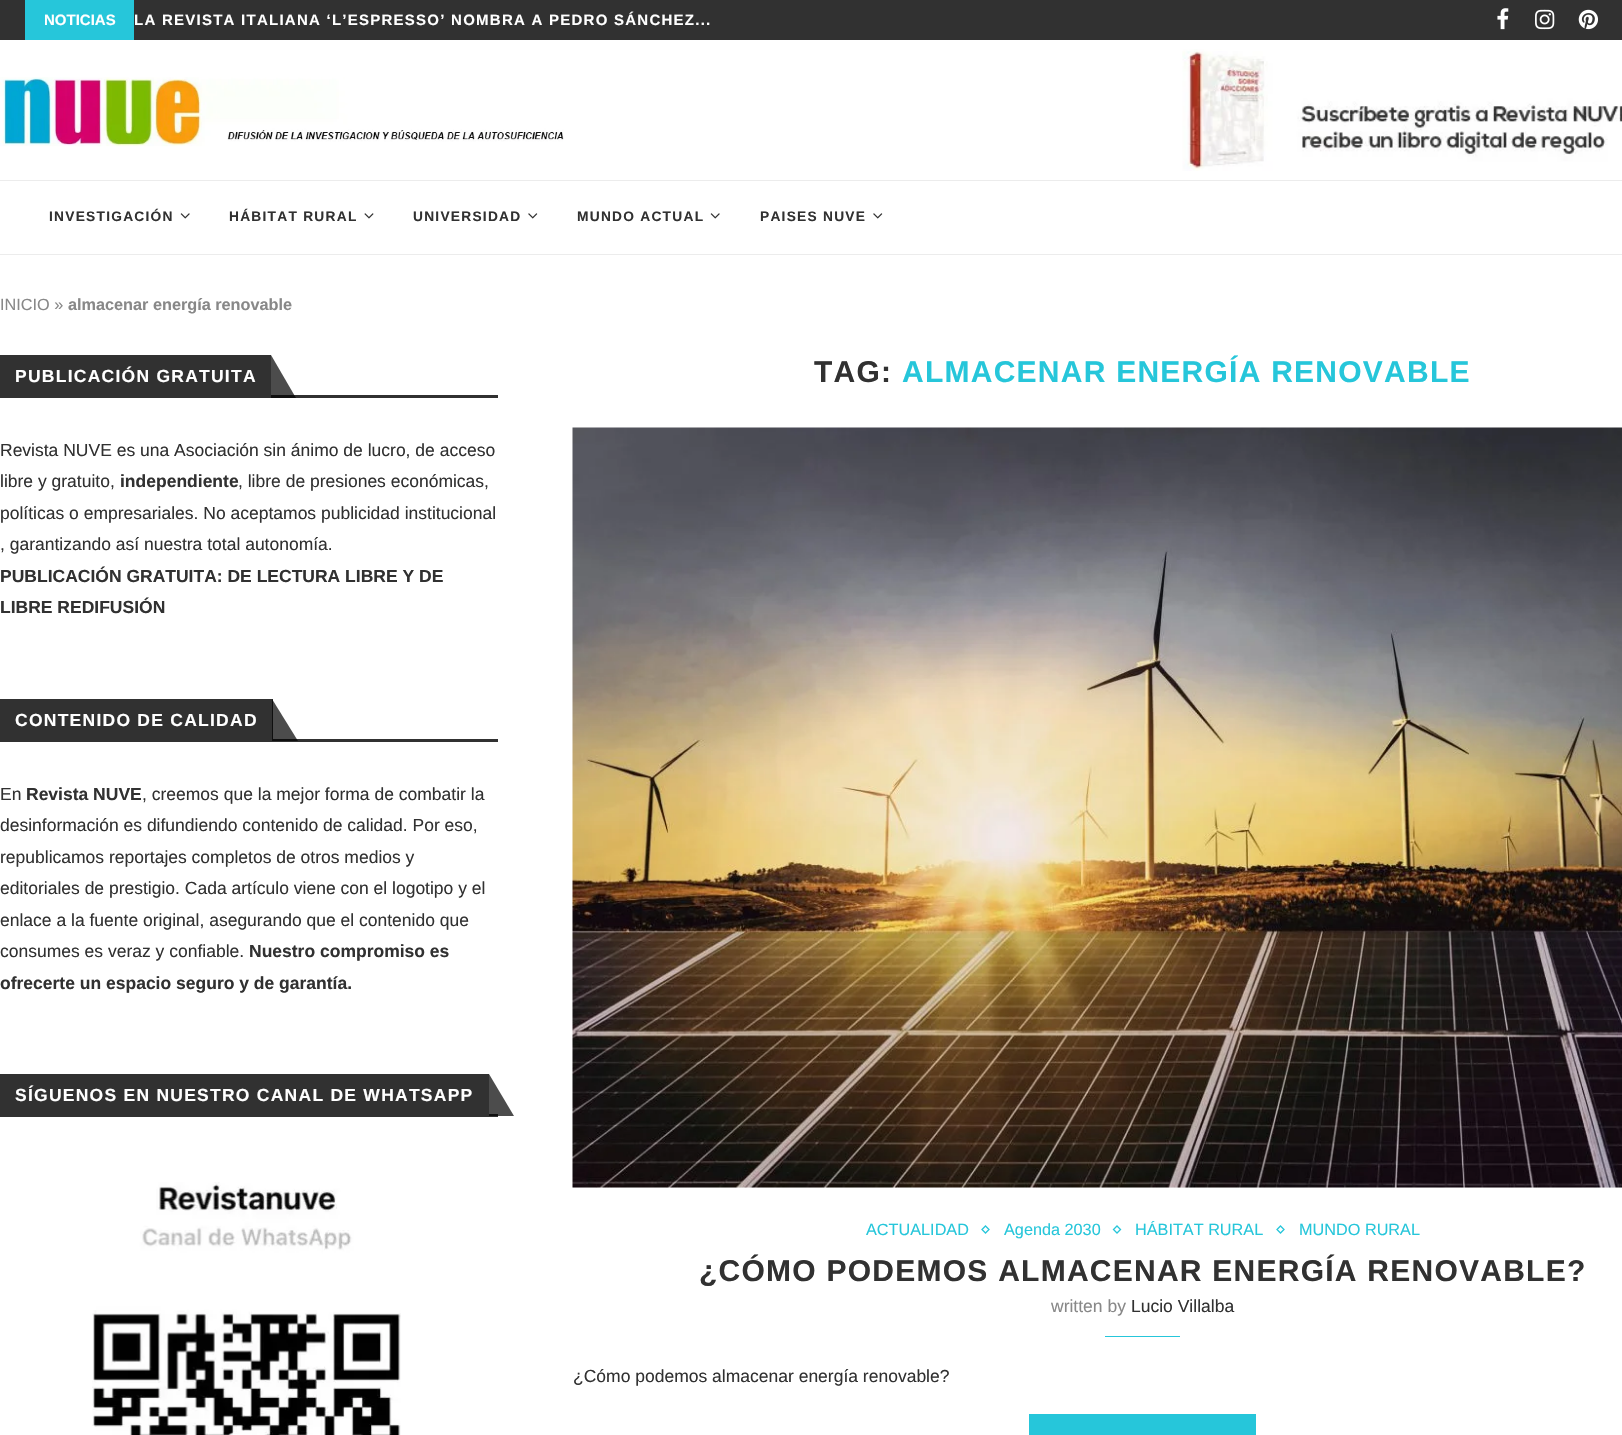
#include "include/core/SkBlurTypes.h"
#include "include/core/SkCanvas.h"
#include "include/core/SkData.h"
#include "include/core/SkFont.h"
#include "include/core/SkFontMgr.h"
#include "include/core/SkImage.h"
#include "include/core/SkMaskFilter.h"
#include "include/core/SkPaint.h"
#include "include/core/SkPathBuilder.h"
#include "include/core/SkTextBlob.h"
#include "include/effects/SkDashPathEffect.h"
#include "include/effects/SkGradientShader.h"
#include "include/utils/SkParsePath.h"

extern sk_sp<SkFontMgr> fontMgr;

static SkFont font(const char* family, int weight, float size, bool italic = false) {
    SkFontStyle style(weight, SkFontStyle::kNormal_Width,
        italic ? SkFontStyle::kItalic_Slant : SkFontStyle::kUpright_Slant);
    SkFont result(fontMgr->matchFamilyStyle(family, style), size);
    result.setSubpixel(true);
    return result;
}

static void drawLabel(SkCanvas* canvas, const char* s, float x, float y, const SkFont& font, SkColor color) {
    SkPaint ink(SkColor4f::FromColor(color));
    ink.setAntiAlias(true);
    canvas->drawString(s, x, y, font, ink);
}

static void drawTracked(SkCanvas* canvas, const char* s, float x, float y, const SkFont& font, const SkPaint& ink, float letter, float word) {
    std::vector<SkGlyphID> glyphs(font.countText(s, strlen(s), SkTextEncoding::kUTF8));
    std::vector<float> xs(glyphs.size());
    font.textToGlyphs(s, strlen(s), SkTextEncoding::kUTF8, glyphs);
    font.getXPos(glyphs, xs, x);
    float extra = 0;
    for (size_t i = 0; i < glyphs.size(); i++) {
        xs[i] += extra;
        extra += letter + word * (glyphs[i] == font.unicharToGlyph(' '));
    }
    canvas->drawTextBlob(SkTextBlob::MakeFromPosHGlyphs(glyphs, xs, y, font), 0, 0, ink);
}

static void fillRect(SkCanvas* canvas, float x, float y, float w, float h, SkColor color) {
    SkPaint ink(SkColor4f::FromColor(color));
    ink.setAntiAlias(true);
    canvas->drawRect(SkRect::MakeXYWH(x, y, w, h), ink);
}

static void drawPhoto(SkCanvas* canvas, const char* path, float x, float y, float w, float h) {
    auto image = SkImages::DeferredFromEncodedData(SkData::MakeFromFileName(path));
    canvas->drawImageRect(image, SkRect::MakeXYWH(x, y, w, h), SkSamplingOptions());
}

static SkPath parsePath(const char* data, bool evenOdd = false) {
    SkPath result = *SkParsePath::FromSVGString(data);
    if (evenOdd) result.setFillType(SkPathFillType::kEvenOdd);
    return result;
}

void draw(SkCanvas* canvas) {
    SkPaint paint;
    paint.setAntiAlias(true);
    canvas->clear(0xFFFFFFFF);
    fillRect(canvas, 0, 0, 1622, 40, 0xFF313131);
    fillRect(canvas, 25, 0, 109, 40, 0xFF26C6DA);
    SkFont font1 = font("Liberation Sans", 700, 15);
    drawLabel(canvas, "NOTICIAS", 44, 25, font1, 0xFFFFFFFF);
    paint.setColor(0xFFFFFFFF);
    drawTracked(canvas, "LA REVISTA ITALIANA ‘L’ESPRESSO’ NOMBRA A PEDRO SÁNCHEZ...", 134, 25, font1, paint, 1.25f, 0);
    drawPhoto(canvas, "assets/img1.png", 1497, 8, 12, 22);
    drawPhoto(canvas, "assets/img2.png", 1535, 9, 20, 21);
    drawPhoto(canvas, "assets/img3.png", 1578, 9, 20, 21);
    drawPhoto(canvas, "assets/img4.png", 0, 77, 564, 70);
    drawPhoto(canvas, "assets/img5.png", 1182, 49, 440, 122);
    fillRect(canvas, 0, 180, 1622, 1, 0xFFECECEC);
    fillRect(canvas, 0, 254, 1622, 1, 0xFFECECEC);
    SkFont font2 = font("Liberation Sans", 700, 13.75f);
    paint.setColor(0xFF313131);
    drawTracked(canvas, "INVESTIGACIÓN", 49, 221, font2, paint, 1.25f, 0);
    drawPhoto(canvas, "assets/img6.png", 180, 213, 10, 6);
    drawTracked(canvas, "HÁBITAT RURAL", 229, 221, font2, paint, 1.25f, 0);
    drawPhoto(canvas, "assets/img7.png", 364, 213, 10, 6);
    drawTracked(canvas, "UNIVERSIDAD", 413, 221, font2, paint, 1.25f, 0);
    drawPhoto(canvas, "assets/img8.png", 528, 213, 10, 6);
    drawTracked(canvas, "MUNDO ACTUAL", 577, 221, font2, paint, 1.25f, 0);
    drawPhoto(canvas, "assets/img6.png", 710, 213, 10, 6);
    drawTracked(canvas, "PAISES NUVE", 760, 221, font2, paint, 1.25f, 0);
    drawPhoto(canvas, "assets/img8.png", 873, 213, 10, 6);
    SkFont font3 = font("Liberation Sans", 400, 16.25f);
    drawLabel(canvas, "INICIO »", 0, 310, font3, 0xFF888888);
    SkFont font4 = font("Liberation Sans", 700, 16.25f);
    drawLabel(canvas, "almacenar energía renovable", 68, 310, font4, 0xFF888888);
    fillRect(canvas, 271, 395, 227, 3, 0xFF313131);
    fillRect(canvas, 0, 355, 271, 43, 0xFF313131);
    SkFont font5 = font("Liberation Sans", 700, 17.5f);
    paint.setColor(0xFFFFFFFF);
    drawTracked(canvas, "PUBLICACIÓN GRATUITA", 15, 382, font5, paint, 1.25f, 0);
    paint.setColor(0xB3000000);
    canvas->drawPath(parsePath("M296 398H271V355Z"), paint);
    SkFont font6 = font("Liberation Sans", 400, 17.5f);
    drawLabel(canvas, "Revista NUVE es una Asociación sin ánimo de lucro, de acceso", 0, 456, font6, 0xFF313131);
    drawLabel(canvas, "libre y gratuito,", 0, 487, font6, 0xFF313131);
    drawLabel(canvas, "independiente", 120, 487, font5, 0xFF313131);
    drawLabel(canvas, ", libre de presiones económicas,", 238, 487, font6, 0xFF313131);
    drawLabel(canvas, "políticas o empresariales. No aceptamos publicidad institucional", 0, 519, font6, 0xFF313131);
    drawLabel(canvas, ", garantizando así nuestra total autonomía.", 0, 550, font6, 0xFF313131);
    drawLabel(canvas, "PUBLICACIÓN GRATUITA: DE LECTURA LIBRE Y DE", 0, 582, font5, 0xFF313131);
    drawLabel(canvas, "LIBRE REDIFUSIÓN", 0, 613, font5, 0xFF313131);
    fillRect(canvas, 0, 739, 498, 3, 0xFF313131);
    fillRect(canvas, 0, 699, 273, 40, 0xFF313131);
    paint.setColor(0xFFFFFFFF);
    drawTracked(canvas, "CONTENIDO DE CALIDAD", 15, 726, font5, paint, 1.25f, 0);
    paint.setColor(0xB3000000);
    canvas->drawPath(parsePath("M298 741H272V699Z"), paint);
    drawLabel(canvas, "En", 0, 800, font6, 0xFF313131);
    drawLabel(canvas, "Revista NUVE", 26, 800, font5, 0xFF313131);
    drawLabel(canvas, ", creemos que la mejor forma de combatir la", 142, 800, font6, 0xFF313131);
    drawLabel(canvas, "desinformación es difundiendo contenido de calidad. Por eso,", 0, 831, font6, 0xFF313131);
    drawLabel(canvas, "republicamos reportajes completos de otros medios y", 0, 863, font6, 0xFF313131);
    drawLabel(canvas, "editoriales de prestigio. Cada artículo viene con el logotipo y el", 0, 894, font6, 0xFF313131);
    drawLabel(canvas, "enlace a la fuente original, asegurando que el contenido que", 0, 926, font6, 0xFF313131);
    drawLabel(canvas, "consumes es veraz y confiable.", 0, 957, font6, 0xFF313131);
    drawLabel(canvas, "Nuestro compromiso es", 249, 957, font5, 0xFF313131);
    drawLabel(canvas, "ofrecerte un espacio seguro y de garantía.", 0, 989, font5, 0xFF313131);
    fillRect(canvas, 0, 1114, 498, 3, 0xFF313131);
    fillRect(canvas, 0, 1074, 489, 40, 0xFF313131);
    paint.setColor(0xFFFFFFFF);
    drawTracked(canvas, "SÍGUENOS EN NUESTRO CANAL DE WHATSAPP", 15, 1101, font5, paint, 1.25f, 0);
    paint.setColor(0xB3000000);
    canvas->drawPath(parsePath("M514 1116H489V1074Z"), paint);
    drawPhoto(canvas, "assets/img9.png", 92, 1182, 309, 253);
    SkFont font7 = font("Liberation Sans", 700, 30);
    paint.setColor(0xFF313131);
    drawTracked(canvas, "TAG:", 814, 382, font7, paint, 1.25f, 0);
    paint.setColor(0xFF26C6DA);
    drawTracked(canvas, "ALMACENAR ENERGÍA RENOVABLE", 902, 382, font7, paint, 1.25f, 0);
    fillRect(canvas, 573, 1187, 1049, 1, 0xFFF5F5F5);
    drawPhoto(canvas, "assets/img10.png", 572, 427, 1050, 761);
    drawLabel(canvas, "ACTUALIDAD", 866, 1235, font3, 0xFF26C6DA);
    paint.setStroke(true);
    paint.setStrokeWidth(1.3f);
    canvas->drawPath(parsePath("M985.5 1226L989 1229.5L985.5 1233L982 1229.5Z"), paint);
    drawLabel(canvas, "Agenda 2030", 1004, 1235, font3, 0xFF26C6DA);
    canvas->drawPath(parsePath("M1117 1226L1120.5 1229.5L1117 1233L1113.5 1229.5Z"), paint);
    drawLabel(canvas, "HÁBITAT RURAL", 1135, 1235, font3, 0xFF26C6DA);
    canvas->drawPath(parsePath("M1280.5 1226L1284 1229.5L1280.5 1233L1277 1229.5Z"), paint);
    drawLabel(canvas, "MUNDO RURAL", 1299, 1235, font3, 0xFF26C6DA);
    paint.setStroke(false);
    paint.setColor(0xFF313131);
    drawTracked(canvas, "¿CÓMO PODEMOS ALMACENAR ENERGÍA RENOVABLE?", 699, 1281, font7, paint, 1.25f, 0);
    drawLabel(canvas, "written by", 1051, 1312, font6, 0xFF888888);
    drawLabel(canvas, "Lucio Villalba", 1131, 1312, font6, 0xFF313131);
    fillRect(canvas, 1105, 1336, 75, 1, 0xFF26C6DA);
    drawLabel(canvas, "¿Cómo podemos almacenar energía renovable?", 573, 1382, font6, 0xFF313131);
    fillRect(canvas, 1029, 1414, 227, 21, 0xFF26C6DA);
}
